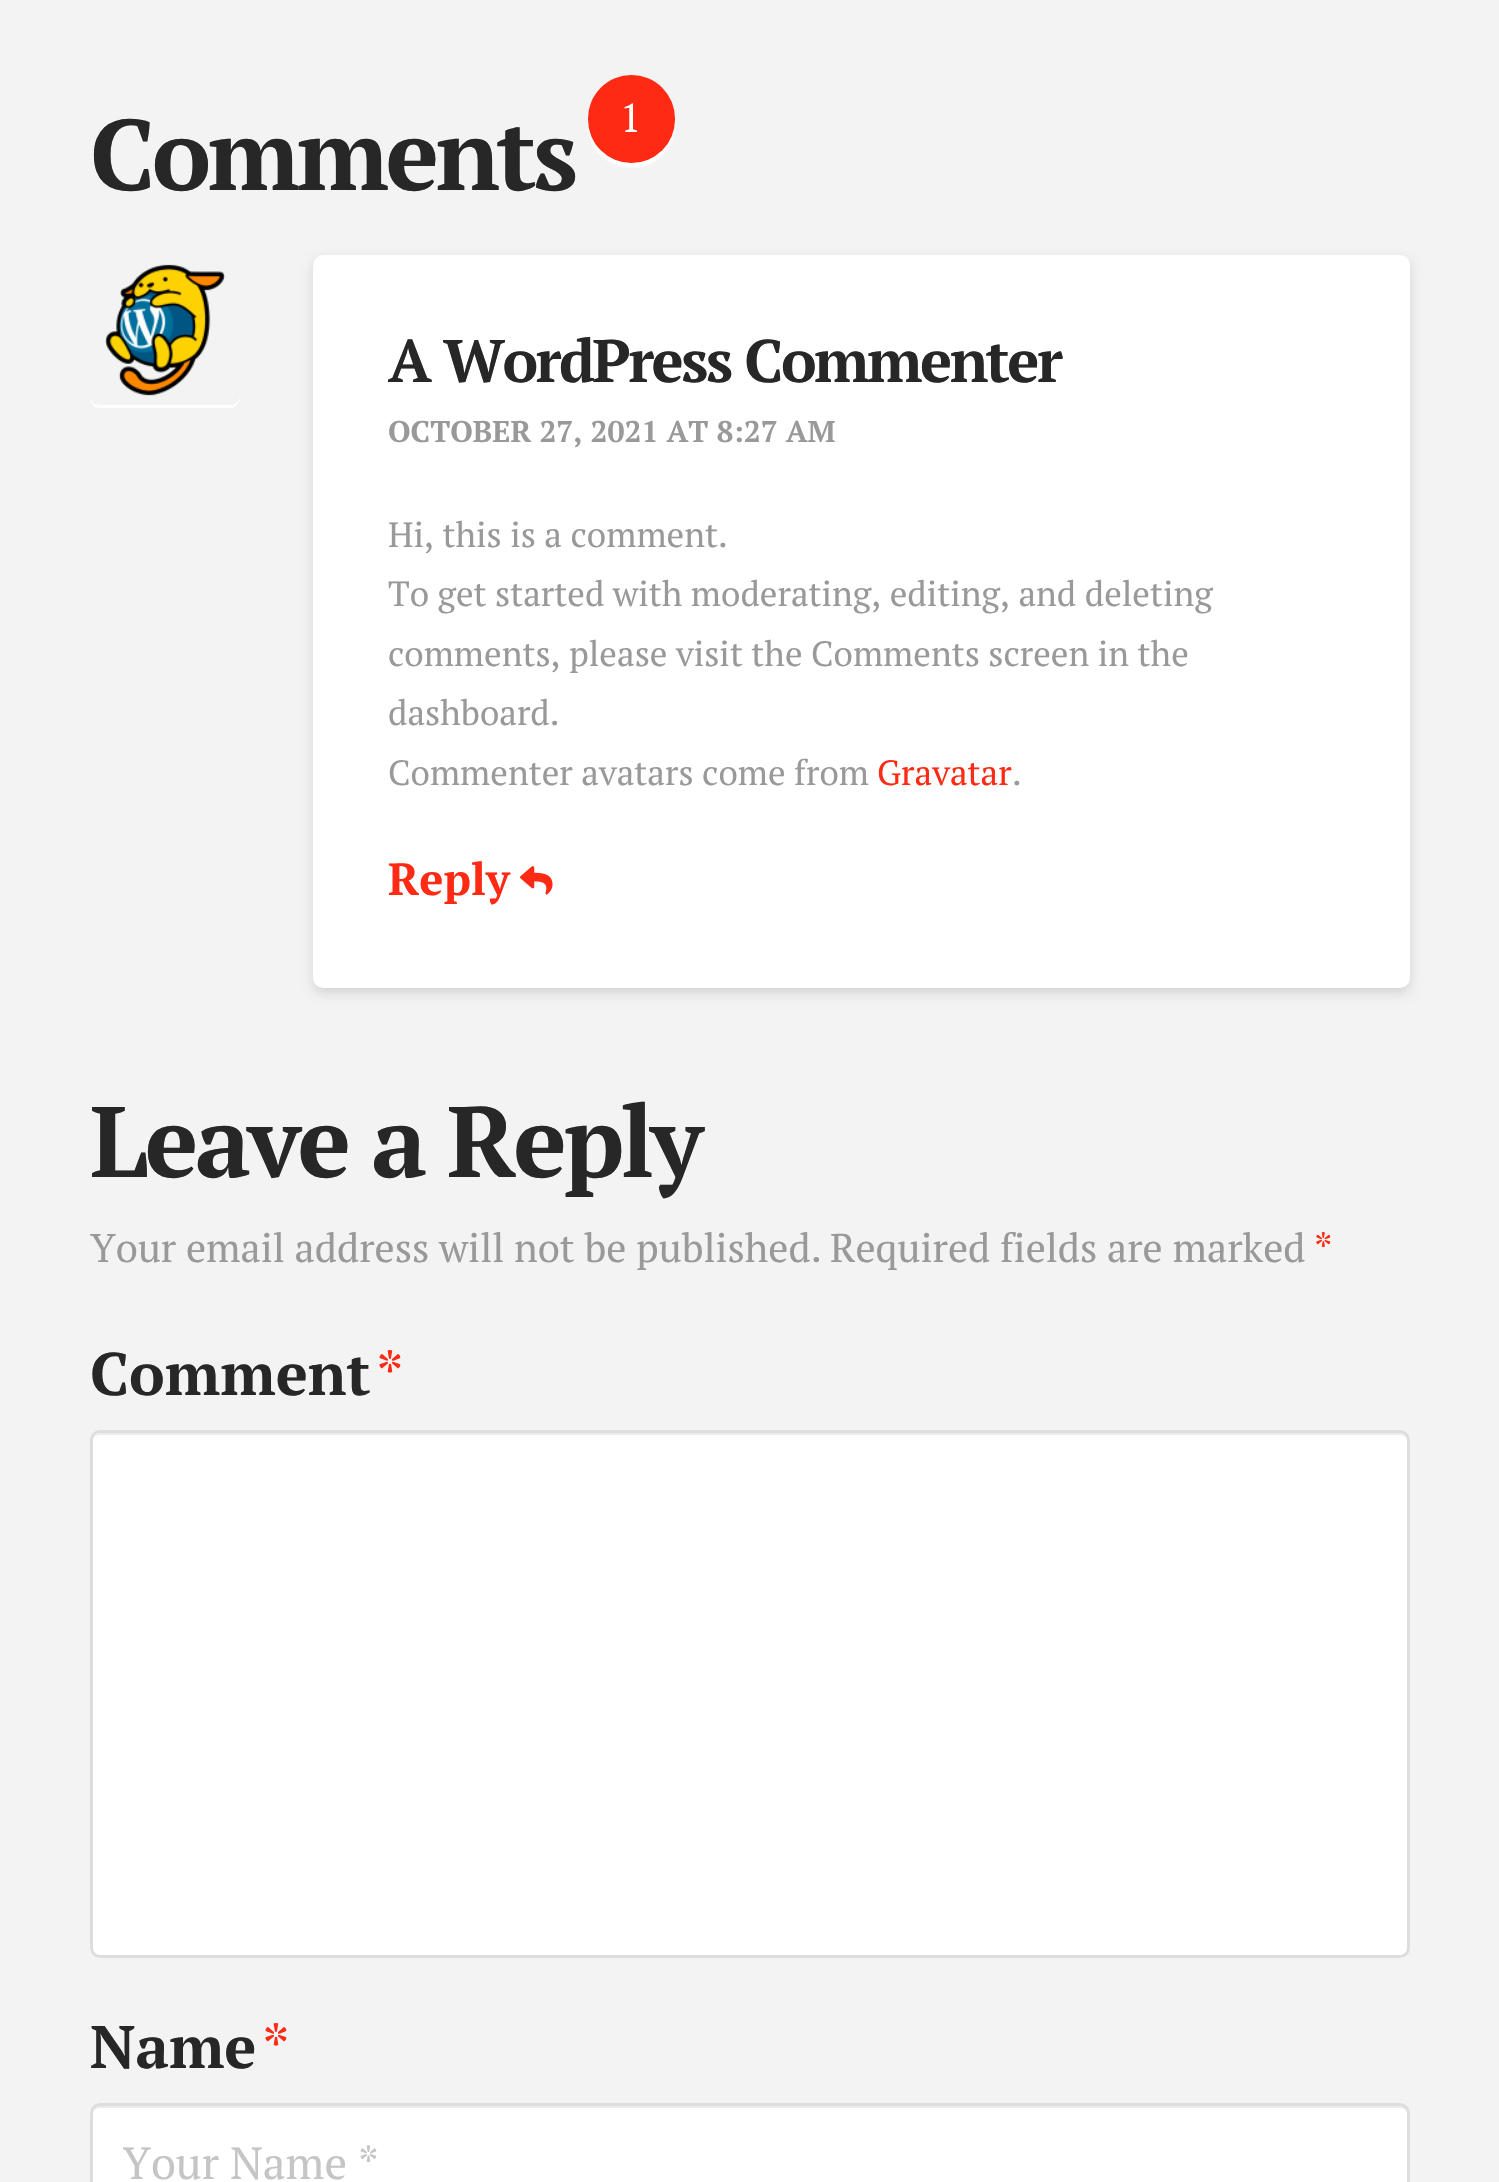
#include "include/core/SkBlurTypes.h"
#include "include/core/SkCanvas.h"
#include "include/core/SkData.h"
#include "include/core/SkFont.h"
#include "include/core/SkFontMgr.h"
#include "include/core/SkImage.h"
#include "include/core/SkMaskFilter.h"
#include "include/core/SkPaint.h"
#include "include/core/SkPathBuilder.h"
#include "include/core/SkTextBlob.h"
#include "include/effects/SkDashPathEffect.h"
#include "include/effects/SkGradientShader.h"
#include "include/utils/SkParsePath.h"

extern sk_sp<SkFontMgr> fontMgr;

static SkFont font(const char* family, int weight, float size, bool italic = false) {
    SkFontStyle style(weight, SkFontStyle::kNormal_Width,
        italic ? SkFontStyle::kItalic_Slant : SkFontStyle::kUpright_Slant);
    SkFont result(fontMgr->matchFamilyStyle(family, style), size);
    result.setSubpixel(true);
    return result;
}

static void drawLabel(SkCanvas* canvas, const char* s, float x, float y, const SkFont& font, SkColor color) {
    SkPaint ink(SkColor4f::FromColor(color));
    ink.setAntiAlias(true);
    canvas->drawString(s, x, y, font, ink);
}

static void drawTracked(SkCanvas* canvas, const char* s, float x, float y, const SkFont& font, const SkPaint& ink, float letter, float word) {
    std::vector<SkGlyphID> glyphs(font.countText(s, strlen(s), SkTextEncoding::kUTF8));
    std::vector<float> xs(glyphs.size());
    font.textToGlyphs(s, strlen(s), SkTextEncoding::kUTF8, glyphs);
    font.getXPos(glyphs, xs, x);
    float extra = 0;
    for (size_t i = 0; i < glyphs.size(); i++) {
        xs[i] += extra;
        extra += letter + word * (glyphs[i] == font.unicharToGlyph(' '));
    }
    canvas->drawTextBlob(SkTextBlob::MakeFromPosHGlyphs(glyphs, xs, y, font), 0, 0, ink);
}

static void fillRRect(SkCanvas* canvas, float x, float y, float w, float h, float radius, SkColor color) {
    SkPaint ink(SkColor4f::FromColor(color));
    ink.setAntiAlias(true);
    canvas->drawRoundRect(SkRect::MakeXYWH(x, y, w, h), radius, radius, ink);
}

static void drawPhoto(SkCanvas* canvas, const char* path, float x, float y, float w, float h) {
    auto image = SkImages::DeferredFromEncodedData(SkData::MakeFromFileName(path));
    canvas->drawImageRect(image, SkRect::MakeXYWH(x, y, w, h), SkSamplingOptions());
}

static SkPath parsePath(const char* data, bool evenOdd = false) {
    SkPath result = *SkParsePath::FromSVGString(data);
    if (evenOdd) result.setFillType(SkPathFillType::kEvenOdd);
    return result;
}

void draw(SkCanvas* canvas) {
    SkPaint paint;
    paint.setAntiAlias(true);
    canvas->clear(0xFFF3F3F3);
    SkFont font1 = font("PT Serif", 700, 100);
    paint.setColor(0xFF272727);
    drawTracked(canvas, "Comments", 90, 190, font1, paint, -3.5f, 0);
    paint.setColor(0xFFFFFFFF);
    paint.setMaskFilter(SkMaskFilter::MakeBlur(kNormal_SkBlurStyle, 1));
    canvas->drawRoundRect(SkRect::MakeXYWH(588, 80, 87, 88), 43.5f, 43.5f, paint);
    paint.setMaskFilter(nullptr);
    fillRRect(canvas, 588, 75, 87, 88, 43.5f, 0xFFFF2A13);
    SkFont font2 = font("PT Serif", 400, 40);
    drawLabel(canvas, "1", 620, 132, font2, 0xFFFFFFFF);
    drawPhoto(canvas, "assets/img1.png", 105, 264, 120, 132);
    paint.setColor(0xFFFDFDFD);
    canvas->drawPath(parsePath("M90 395V398C90 404 94 408 100 408H230C236 408 240 404 240 398V395C240 401 236 405 230 405H100C94 405 90 401 90 395Z"), paint);
    paint.setColor(0x21000000);
    paint.setMaskFilter(SkMaskFilter::MakeBlur(kNormal_SkBlurStyle, 6));
    canvas->drawRoundRect(SkRect::MakeXYWH(313, 260, 1097, 733), 10, 10, paint);
    paint.setMaskFilter(nullptr);
    fillRRect(canvas, 313, 255, 1097, 733, 10, 0xFFFFFFFF);
    SkFont font3 = font("PT Serif", 700, 60);
    paint.setColor(0xFF272727);
    drawTracked(canvas, "A WordPress Commenter", 388, 382, font3, paint, -2.5f, 0);
    SkFont font4 = font("PT Serif", 700, 30);
    drawLabel(canvas, "OCTOBER 27, 2021 AT 8:27 AM", 388, 442, font4, 0xFF999999);
    SkFont font5 = font("PT Serif", 400, 35);
    drawLabel(canvas, "Hi, this is a comment.", 388, 547, font5, 0xFF999999);
    drawLabel(canvas, "To get started with moderating, editing, and deleting", 388, 606, font5, 0xFF999999);
    drawLabel(canvas, "comments, please visit the Comments screen in the", 388, 666, font5, 0xFF999999);
    drawLabel(canvas, "dashboard.", 388, 725, font5, 0xFF999999);
    drawLabel(canvas, "Commenter avatars come from", 388, 785, font5, 0xFF999999);
    drawLabel(canvas, "Gravatar", 877, 785, font5, 0xFFFF2A13);
    drawLabel(canvas, ".", 1012, 785, font5, 0xFF999999);
    SkFont font6 = font("PT Serif", 700, 45);
    drawLabel(canvas, "Reply", 388, 895, font6, 0xFFFF2A13);
    drawPhoto(canvas, "assets/img2.png", 520, 866, 33, 29);
    drawTracked(canvas, "Leave a Reply", 90, 1177, font1, paint, -3.5f, 0);
    drawLabel(canvas, "Your email address will not be published.", 90, 1262, font2, 0xFF999999);
    drawLabel(canvas, "Required fields are marked", 830, 1262, font2, 0xFF999999);
    drawLabel(canvas, "*", 1314, 1262, font2, 0xFFFF2A13);
    drawLabel(canvas, "Comment", 90, 1395, font3, 0xFF272727);
    SkFont font7 = font("PT Serif", 400, 60);
    drawLabel(canvas, "*", 376, 1395, font7, 0xFFFF2A13);
    fillRRect(canvas, 90, 1430, 1320, 528, 10, 0xFFFFFFFF);
    paint.setColor(0xFFECECEC);
    canvas->drawPath(parsePath("M100 1435H1400C1404 1435 1408 1438 1408 1442V1441C1408 1437 1404 1433 1400 1433H101C98 1433 95 1435 94 1438C95 1436 98 1435 100 1435Z"), paint);
    paint.setStroke(true);
    paint.setStrokeWidth(3);
    paint.setColor(0xFFDDDDDD);
    canvas->drawRoundRect(SkRect::MakeXYWH(91.5f, 1431.5f, 1317, 525), 8.5f, 8.5f, paint);
    drawLabel(canvas, "Name", 90, 2068, font3, 0xFF272727);
    drawLabel(canvas, "*", 262, 2068, font7, 0xFFFF2A13);
    fillRRect(canvas, 90, 2103, 1320, 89, 10, 0xFFFFFFFF);
    paint.setStroke(false);
    paint.setColor(0xFFECECEC);
    canvas->drawPath(parsePath("M100 2108H1400C1404 2108 1408 2111 1408 2115V2113C1408 2109 1404 2105 1400 2105H101C97 2105 94 2108 93 2111C95 2109 97 2108 100 2108Z"), paint);
    paint.setStroke(true);
    paint.setColor(0xFFDDDDDD);
    canvas->drawRoundRect(SkRect::MakeXYWH(91.5f, 2104.5f, 1317, 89), 8.5f, 8.5f, paint);
    canvas->save();
    canvas->clipRect(SkRect::MakeXYWH(123, 2133, 1255, 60));
    SkFont font8 = font("PT Serif", 400, 45);
    drawLabel(canvas, "Your Name *", 122, 2179, font8, 0xFFC5C5C5);
    canvas->restore();
}
